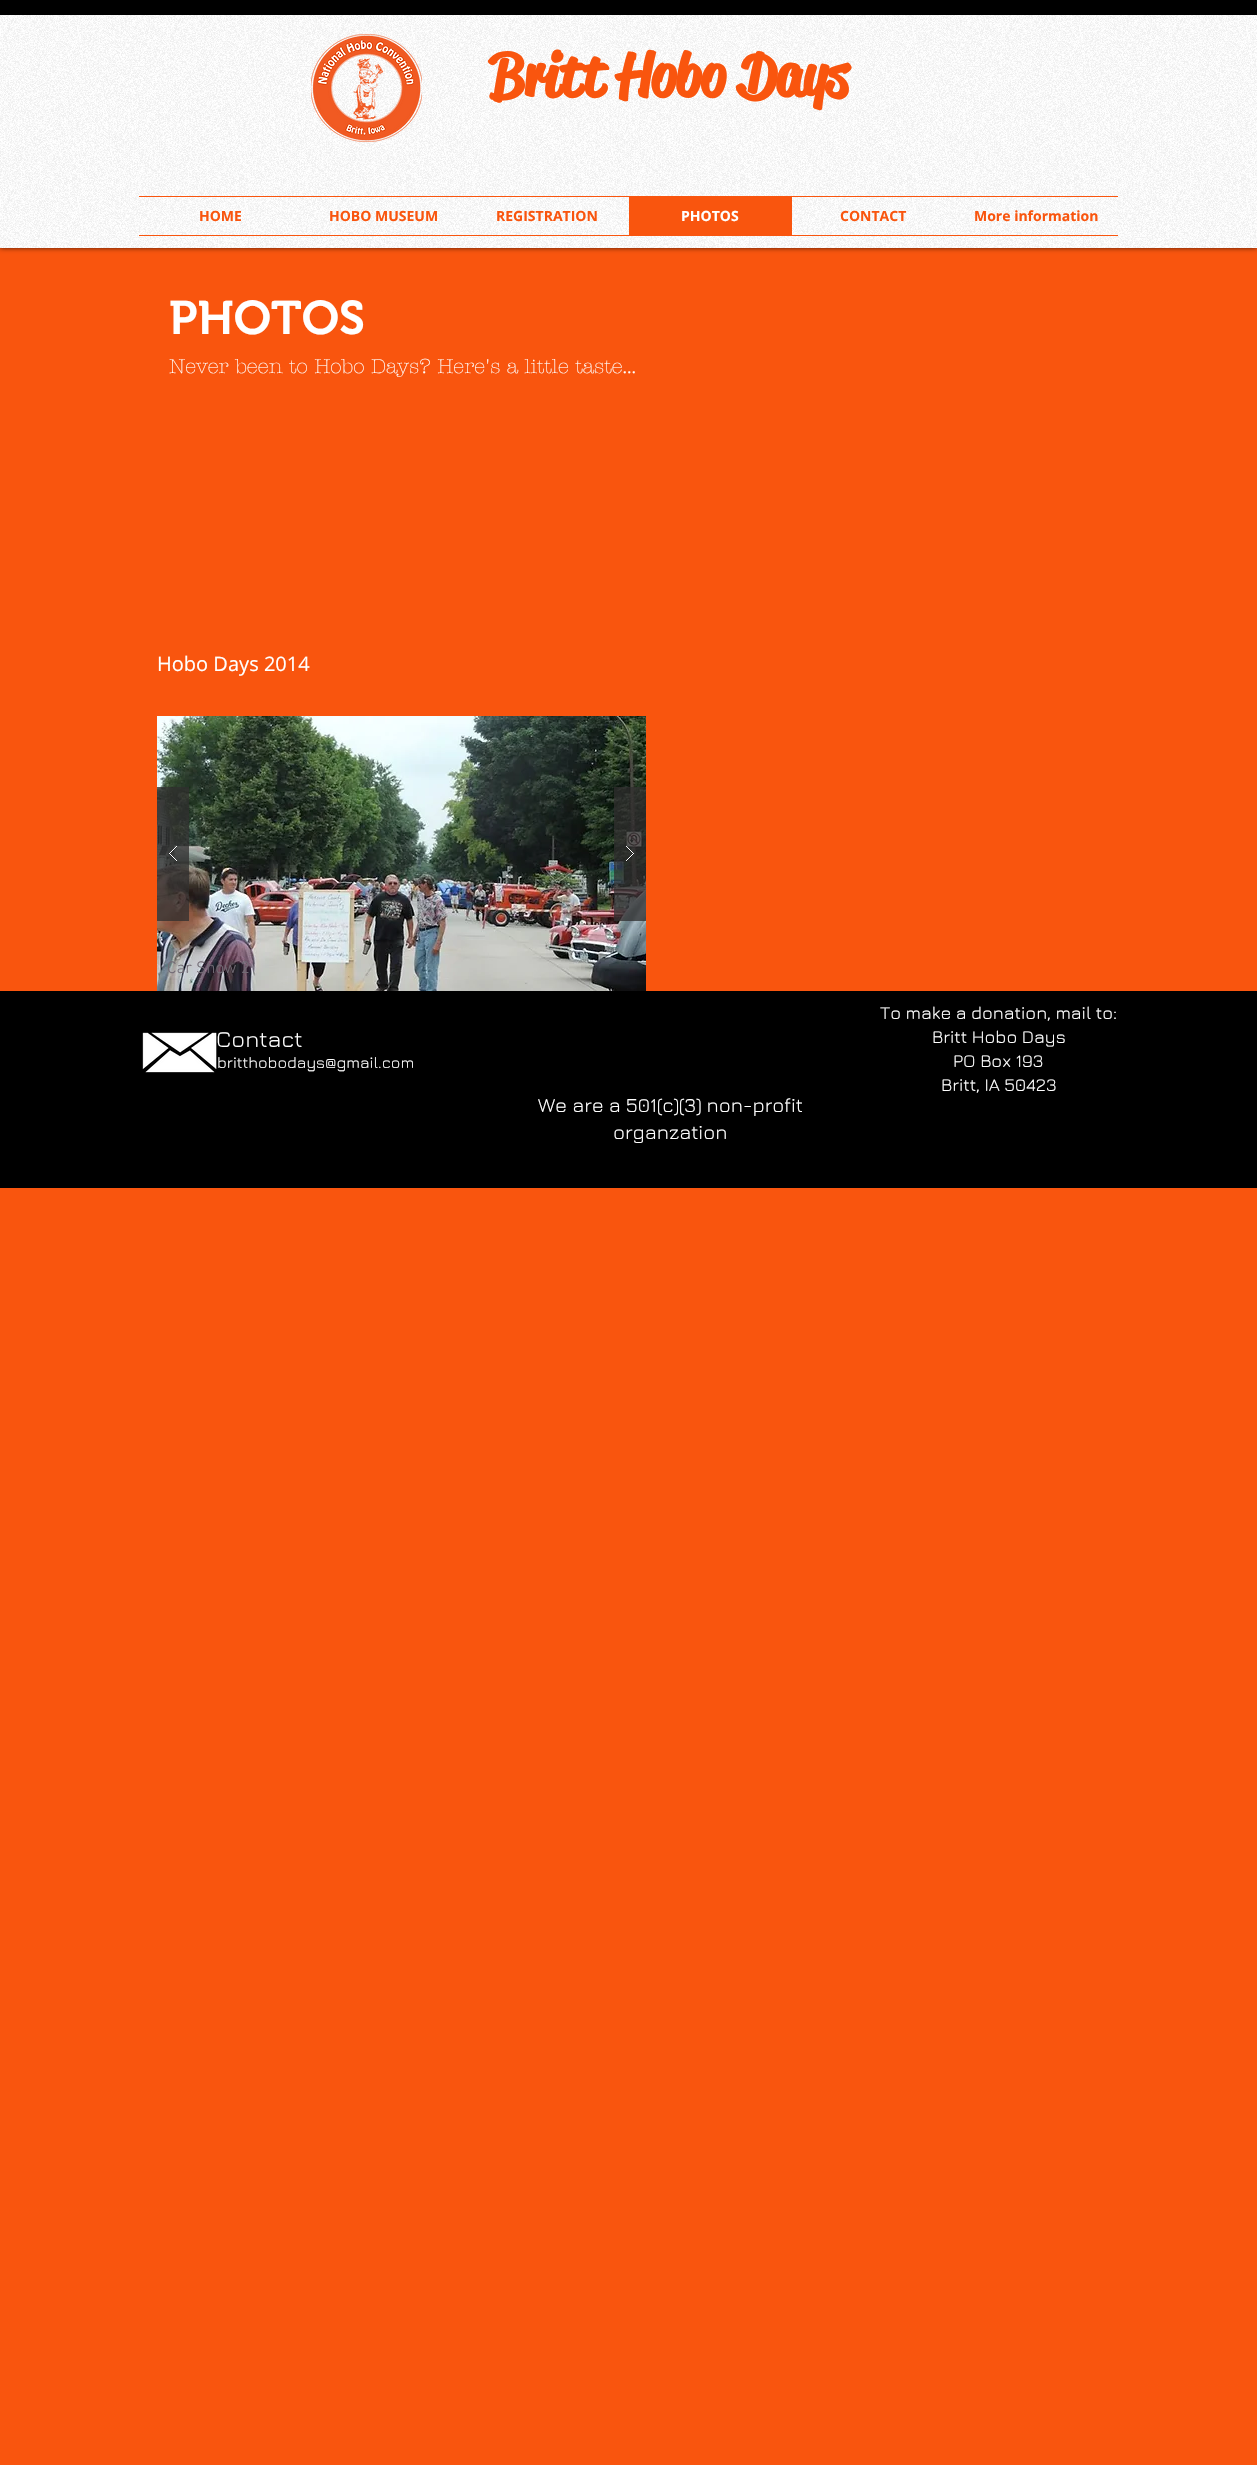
#include "include/core/SkBlurTypes.h"
#include "include/core/SkCanvas.h"
#include "include/core/SkData.h"
#include "include/core/SkFont.h"
#include "include/core/SkFontMgr.h"
#include "include/core/SkImage.h"
#include "include/core/SkMaskFilter.h"
#include "include/core/SkPaint.h"
#include "include/core/SkPathBuilder.h"
#include "include/core/SkTextBlob.h"
#include "include/effects/SkDashPathEffect.h"
#include "include/effects/SkGradientShader.h"
#include "include/utils/SkParsePath.h"

extern sk_sp<SkFontMgr> fontMgr;

static SkFont font(const char* family, int weight, float size, bool italic = false) {
    SkFontStyle style(weight, SkFontStyle::kNormal_Width,
        italic ? SkFontStyle::kItalic_Slant : SkFontStyle::kUpright_Slant);
    SkFont result(fontMgr->matchFamilyStyle(family, style), size);
    result.setSubpixel(true);
    return result;
}

static void drawLabel(SkCanvas* canvas, const char* s, float x, float y, const SkFont& font, SkColor color) {
    SkPaint ink(SkColor4f::FromColor(color));
    ink.setAntiAlias(true);
    canvas->drawString(s, x, y, font, ink);
}

static void fillRect(SkCanvas* canvas, float x, float y, float w, float h, SkColor color) {
    SkPaint ink(SkColor4f::FromColor(color));
    ink.setAntiAlias(true);
    canvas->drawRect(SkRect::MakeXYWH(x, y, w, h), ink);
}

static void drawPhoto(SkCanvas* canvas, const char* path, float x, float y, float w, float h) {
    auto image = SkImages::DeferredFromEncodedData(SkData::MakeFromFileName(path));
    canvas->drawImageRect(image, SkRect::MakeXYWH(x, y, w, h), SkSamplingOptions());
}

void draw(SkCanvas* canvas) {
    SkPaint paint;
    paint.setAntiAlias(true);
    canvas->clear(0xFFF9550E);
    paint.setColor(0xB3000000);
    paint.setMaskFilter(SkMaskFilter::MakeBlur(kNormal_SkBlurStyle, 2.5f));
    canvas->drawRect(SkRect::MakeXYWH(0, 0, 1257, 248), paint);
    paint.setMaskFilter(nullptr);
    fillRect(canvas, 0, 15, 1257, 233, 0xFFFFFFFF);
    drawPhoto(canvas, "assets/img1.png", 0, 15, 1257, 233);
    fillRect(canvas, 0, 0, 1257, 15, 0xFF000000);
    drawPhoto(canvas, "assets/img2.png", 311, 34, 111, 108);
    SkFont font1 = font("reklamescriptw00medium", 700, 60);
    drawLabel(canvas, "Britt Hobo Days", 489, 96, font1, 0xFFF9550E);
    fillRect(canvas, 139, 196, 979, 1, 0xFFF9550E);
    fillRect(canvas, 139, 235, 979, 1, 0xFFF9550E);
    SkFont font2 = font("Open Sans", 700, 14);
    drawLabel(canvas, "HOME", 199, 221, font2, 0xFFF9550E);
    drawLabel(canvas, "HOBO MUSEUM", 329, 221, font2, 0xFFF9550E);
    drawLabel(canvas, "REGISTRATION", 496, 221, font2, 0xFFF9550E);
    fillRect(canvas, 629, 197, 163, 38, 0xFFF9550E);
    drawLabel(canvas, "PHOTOS", 681, 221, font2, 0xFFFFFFFF);
    drawLabel(canvas, "CONTACT", 840, 221, font2, 0xFFF9550E);
    drawLabel(canvas, "More information", 974, 221, font2, 0xFFF9550E);
    SkFont font3 = font("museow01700", 600, 47);
    drawLabel(canvas, "PHOTOS", 169, 334, font3, 0xFFFFFFFF);
    SkFont font4 = font("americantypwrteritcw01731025", 300, 20);
    drawLabel(canvas, "Never been to Hobo Days? Here's a little taste...", 169, 373, font4, 0xFFFFFFFF);
    SkFont font5 = font("Open Sans", 400, 20);
    drawLabel(canvas, "Hobo Days 2014", 157, 671, font5, 0xFFFFFFFF);
    drawPhoto(canvas, "assets/img5.png", 157, 716, 489, 275);
    fillRect(canvas, 157, 787, 32, 134, 0xBF2F2E2E);
    drawPhoto(canvas, "assets/img3.png", 169, 846, 8, 16);
    fillRect(canvas, 614, 787, 32, 134, 0xBF2F2E2E);
    drawPhoto(canvas, "assets/img4.png", 626, 846, 8, 16);
    SkFont font6 = font("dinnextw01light", 300, 17);
    drawLabel(canvas, "Car Show 2", 167, 973, font6, 0xFF726B75);
    fillRect(canvas, 0, 991, 1257, 197, 0xFF000000);
    drawPhoto(canvas, "assets/img6.png", 142, 1032, 75, 41);
    SkFont font7 = font("Jura", 400, 23);
    drawLabel(canvas, "Contact", 216, 1047, font7, 0xFFFFFFFF);
    SkFont font8 = font("Jura", 400, 16);
    drawLabel(canvas, "britthobodays@gmail.com", 217, 1068, font8, 0xFFFFFFFF);
    SkFont font9 = font("Jura", 400, 18);
    drawLabel(canvas, "To make a donation, mail to:", 880, 1019, font9, 0xFFFFFFFF);
    drawLabel(canvas, "Britt Hobo Days", 932, 1043, font9, 0xFFFFFFFF);
    drawLabel(canvas, "PO Box 193", 953, 1067, font9, 0xFFFFFFFF);
    drawLabel(canvas, "Britt, IA 50423", 941, 1091, font9, 0xFFFFFFFF);
    SkFont font10 = font("Jura", 400, 20);
    drawLabel(canvas, "We are a 501(c)(3) non-profit", 538, 1112, font10, 0xFFFFFFFF);
    drawLabel(canvas, "organzation", 613, 1139, font10, 0xFFFFFFFF);
}
